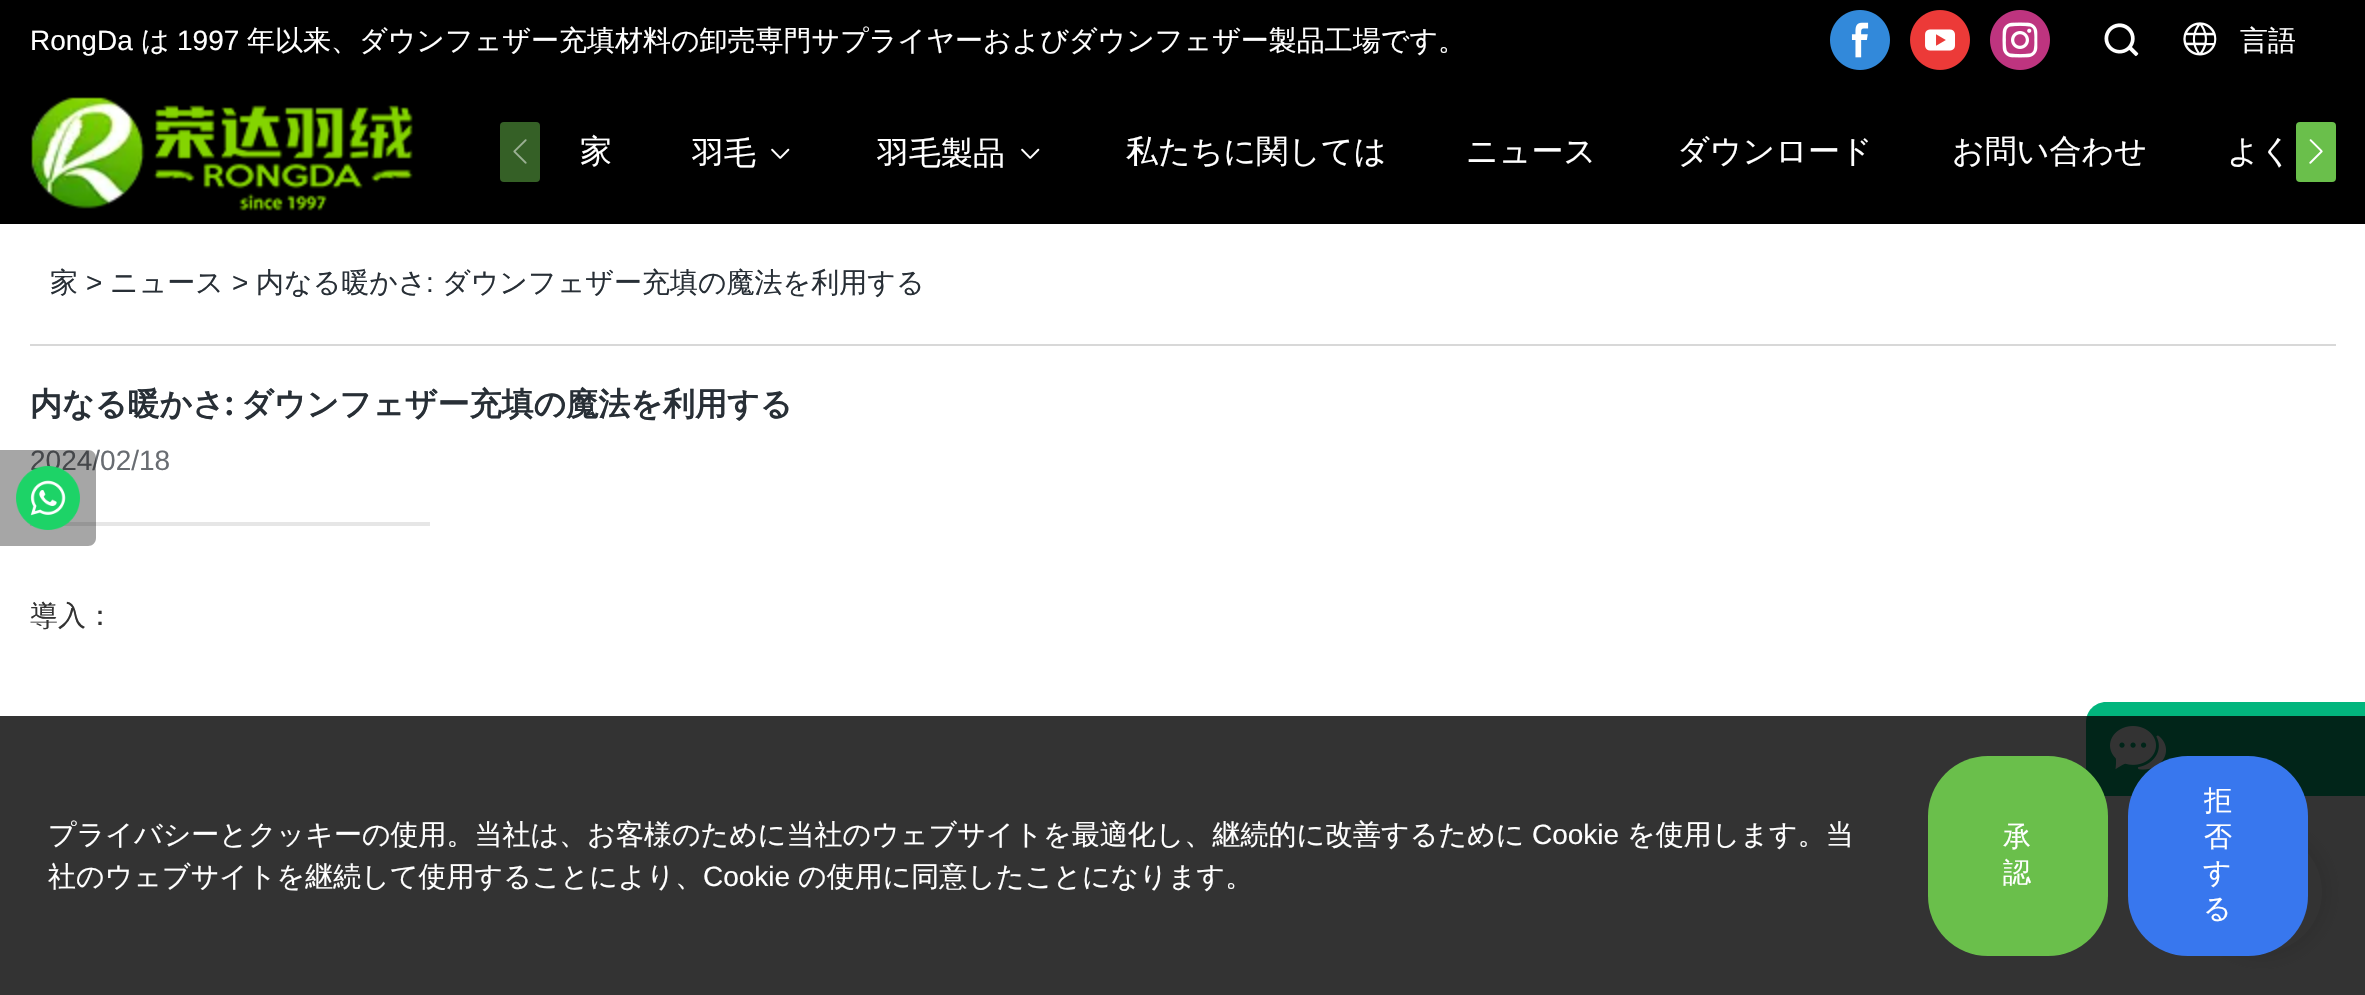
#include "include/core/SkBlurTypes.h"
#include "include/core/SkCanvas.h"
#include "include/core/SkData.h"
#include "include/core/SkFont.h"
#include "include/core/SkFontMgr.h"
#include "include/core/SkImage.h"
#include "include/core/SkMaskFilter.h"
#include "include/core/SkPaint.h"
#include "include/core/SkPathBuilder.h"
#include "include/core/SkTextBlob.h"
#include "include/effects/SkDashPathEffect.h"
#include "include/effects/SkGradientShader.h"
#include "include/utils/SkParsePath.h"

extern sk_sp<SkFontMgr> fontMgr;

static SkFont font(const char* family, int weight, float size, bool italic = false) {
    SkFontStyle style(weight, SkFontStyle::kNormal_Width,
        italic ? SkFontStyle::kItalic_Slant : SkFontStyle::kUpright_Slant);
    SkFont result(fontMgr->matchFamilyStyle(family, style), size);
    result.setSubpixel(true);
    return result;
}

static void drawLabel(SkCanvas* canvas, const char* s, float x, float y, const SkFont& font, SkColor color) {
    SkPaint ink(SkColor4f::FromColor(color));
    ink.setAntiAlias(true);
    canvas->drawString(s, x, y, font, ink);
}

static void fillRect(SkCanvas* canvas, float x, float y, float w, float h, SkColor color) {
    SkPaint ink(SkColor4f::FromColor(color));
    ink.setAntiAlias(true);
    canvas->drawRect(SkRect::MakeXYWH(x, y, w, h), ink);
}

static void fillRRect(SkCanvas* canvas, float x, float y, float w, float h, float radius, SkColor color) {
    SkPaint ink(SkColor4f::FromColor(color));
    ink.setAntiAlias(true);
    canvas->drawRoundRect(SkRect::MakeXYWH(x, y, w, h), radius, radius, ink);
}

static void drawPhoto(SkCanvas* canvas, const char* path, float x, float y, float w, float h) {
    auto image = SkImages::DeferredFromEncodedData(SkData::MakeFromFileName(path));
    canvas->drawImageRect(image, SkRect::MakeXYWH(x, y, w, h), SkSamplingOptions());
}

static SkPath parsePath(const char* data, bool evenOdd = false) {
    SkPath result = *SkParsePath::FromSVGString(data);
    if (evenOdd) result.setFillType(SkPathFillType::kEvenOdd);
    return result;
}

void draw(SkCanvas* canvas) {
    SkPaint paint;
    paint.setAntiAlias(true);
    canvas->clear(0xFFFFFFFF);
    fillRect(canvas, 0, 0, 2365, 224, 0xFF000000);
    SkFont font1 = font("Liberation Sans", 400, 28);
    drawLabel(canvas, "RongDa", 30, 50, font1, 0xFFFFFFFF);
    SkFont font2 = font("WenQuanYi Zen Hei", 500, 28);
    drawLabel(canvas, "は", 141, 50, font2, 0xFFFFFFFF);
    drawLabel(canvas, "1997", 177, 50, font1, 0xFFFFFFFF);
    drawLabel(canvas, "年以来、ダウンフェザー充填材料の卸売専門サプライヤーおよびダウンフェザー製品工場です。", 247, 50, font2, 0xFFFFFFFF);
    drawPhoto(canvas, "assets/img1.png", 1830, 10, 60, 60);
    drawPhoto(canvas, "assets/img2.png", 1910, 10, 60, 60);
    drawPhoto(canvas, "assets/img3.png", 1990, 10, 60, 60);
    drawPhoto(canvas, "assets/img4.png", 2104, 23, 35, 34);
    drawPhoto(canvas, "assets/img5.png", 2183, 22, 34, 34);
    drawLabel(canvas, "言語", 2240, 50, font2, 0xFFFFFFFF);
    drawPhoto(canvas, "assets/img6.png", 31, 97, 382, 114);
    fillRRect(canvas, 500, 122, 40, 60, 4, 0xFF356026);
    drawPhoto(canvas, "assets/img7.png", 513, 139, 14, 25);
    SkFont font3 = font("WenQuanYi Zen Hei", 500, 32);
    drawLabel(canvas, "家", 580, 162, font3, 0xFFFFFFFF);
    drawLabel(canvas, "羽毛", 692, 164, font3, 0xFFFFFFFF);
    drawPhoto(canvas, "assets/img8.png", 771, 148, 19, 11);
    drawLabel(canvas, "羽毛製品", 877, 164, font3, 0xFFFFFFFF);
    drawPhoto(canvas, "assets/img8.png", 1021, 148, 19, 11);
    drawLabel(canvas, "私たちに関しては", 1126, 162, font3, 0xFFFFFFFF);
    drawLabel(canvas, "ニュース", 1466, 162, font3, 0xFFFFFFFF);
    drawLabel(canvas, "ダウンロード", 1677, 162, font3, 0xFFFFFFFF);
    drawLabel(canvas, "お問い合わせ", 1952, 162, font3, 0xFFFFFFFF);
    drawLabel(canvas, "よく", 2227, 162, font3, 0xFFFFFFFF);
    fillRRect(canvas, 2296, 122, 40, 60, 4, 0xFF6ABF4B);
    drawPhoto(canvas, "assets/img9.png", 2309, 139, 14, 25);
    fillRect(canvas, 30, 344, 2306, 2, 0xFFD8D8D8);
    drawLabel(canvas, "家", 50, 292, font2, 0xFF282F36);
    drawLabel(canvas, ">", 86, 292, font1, 0xFF282F36);
    drawLabel(canvas, "ニュース", 110, 292, font2, 0xFF282F36);
    drawLabel(canvas, ">", 232, 292, font1, 0xFF282F36);
    drawLabel(canvas, "内なる暖かさ", 256, 292, font2, 0xFF282F36);
    drawLabel(canvas, ":", 426, 292, font1, 0xFF282F36);
    drawLabel(canvas, "ダウンフェザー充填の魔法を利用する", 442, 292, font2, 0xFF282F36);
    SkFont font4 = font("WenQuanYi Zen Hei", 700, 32);
    drawLabel(canvas, "内なる暖かさ", 30, 415, font4, 0xFF282F36);
    SkFont font5 = font("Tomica", 700, 32);
    drawLabel(canvas, ":", 225, 415, font5, 0xFF282F36);
    drawLabel(canvas, "ダウンフェザー充填の魔法を利用する", 241, 415, font4, 0xFF282F36);
    drawLabel(canvas, "2024/02/18", 30, 470, font1, 0xFF696D72);
    fillRect(canvas, 30, 522, 400, 4, 0xFFE6E6E6);
    drawLabel(canvas, "導入：", 30, 625, font2, 0xFF333333);
    paint.setColor(0x59000000);
    canvas->drawPath(parsePath("M0 450H88C92.5 450 96 453.5 96 458V538C96 542.5 92.5 546 88 546H0Z"), paint);
    drawPhoto(canvas, "assets/img10.png", 16, 466, 64, 64);
    paint.setColor(0x527A7A7A);
    paint.setMaskFilter(SkMaskFilter::MakeBlur(kNormal_SkBlurStyle, 15));
    canvas->drawRoundRect(SkRect::MakeXYWH(2202, 832, 120, 120), 60, 60, paint);
    paint.setMaskFilter(nullptr);
    paint.setColor(0xFF02B57D);
    canvas->drawPath(parsePath("M2106 702H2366V796H2106C2095 796 2086 787 2086 776V722C2086 711 2095 702 2106 702Z"), paint);
    drawPhoto(canvas, "assets/img11.png", 2110, 726, 56, 44);
    paint.setColor(0xFFFFFFFF);
    canvas->drawCircle(2262, 892, 60, paint);
    fillRect(canvas, 0, 716, 2365, 279, 0xCC000000);
    drawLabel(canvas, "プライバシーとクッキーの使用。当社は、お客様のために当社のウェブサイトを最適化し、継続的に改善するために", 48, 844, font2, 0xFFFFFFFF);
    drawLabel(canvas, "Cookie", 1532, 844, font1, 0xFFFFFFFF);
    drawLabel(canvas, "を使用します。当", 1627, 844, font2, 0xFFFFFFFF);
    drawLabel(canvas, "社のウェブサイトを継続して使用することにより、", 48, 886, font2, 0xFFFFFFFF);
    drawLabel(canvas, "Cookie", 703, 886, font1, 0xFFFFFFFF);
    drawLabel(canvas, "の使用に同意したことになります。", 798, 886, font2, 0xFFFFFFFF);
    fillRRect(canvas, 1928, 756, 180, 200, 60, 0xFF6ABF4B);
    drawLabel(canvas, "承", 2003, 846, font2, 0xFFFFFFFF);
    drawLabel(canvas, "認", 2003, 882, font2, 0xFFFFFFFF);
    fillRRect(canvas, 2128, 756, 180, 200, 60, 0xFF3877EE);
    drawLabel(canvas, "拒", 2204, 810, font2, 0xFFFFFFFF);
    drawLabel(canvas, "否", 2204, 846, font2, 0xFFFFFFFF);
    drawLabel(canvas, "す", 2203, 882, font2, 0xFFFFFFFF);
    drawLabel(canvas, "る", 2203, 918, font2, 0xFFFFFFFF);
}
